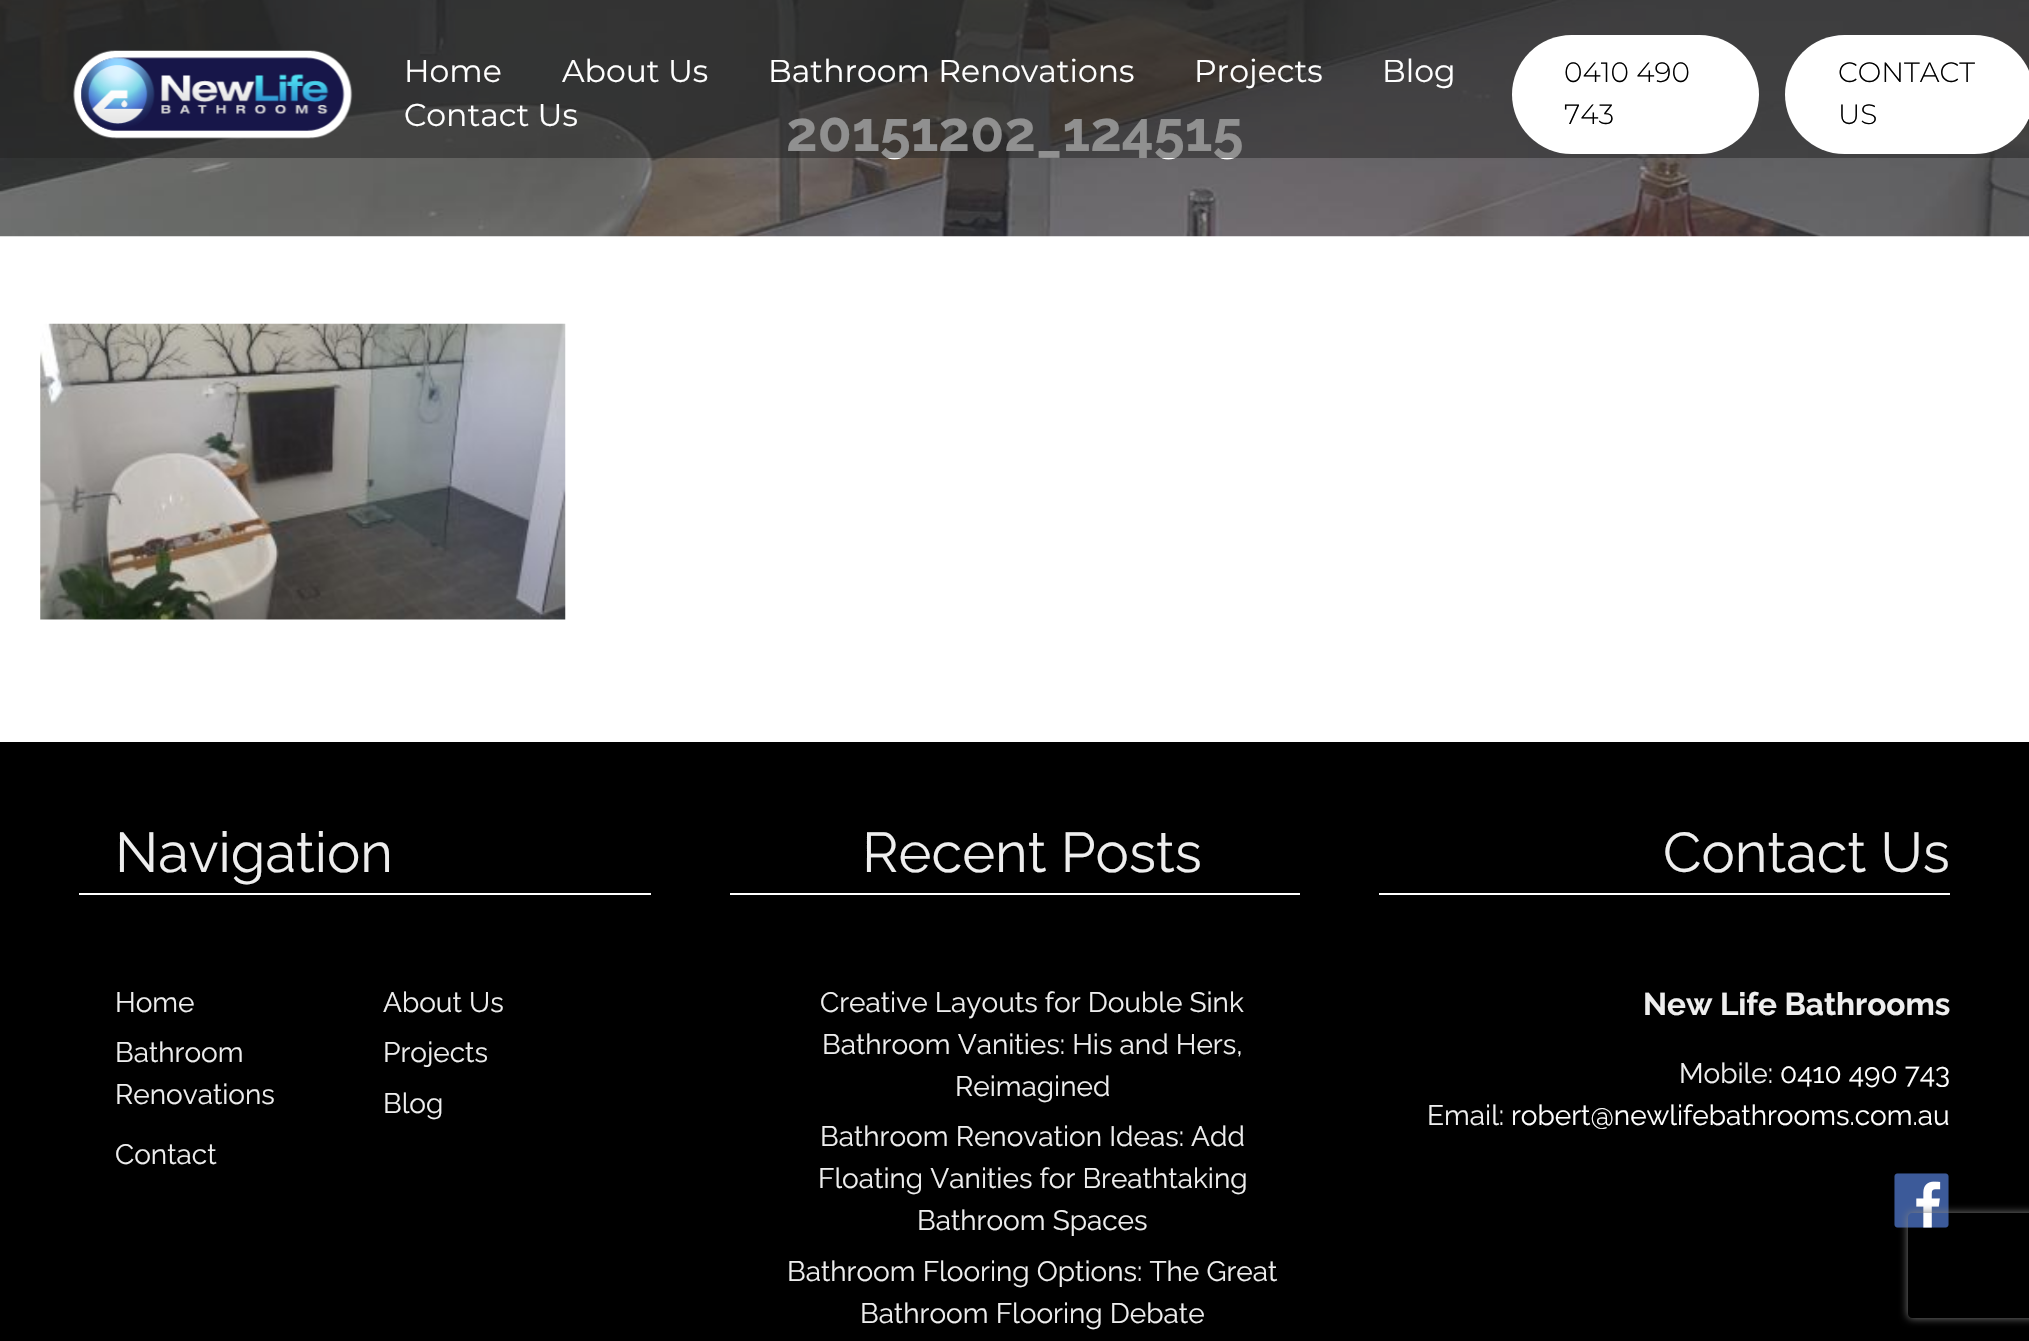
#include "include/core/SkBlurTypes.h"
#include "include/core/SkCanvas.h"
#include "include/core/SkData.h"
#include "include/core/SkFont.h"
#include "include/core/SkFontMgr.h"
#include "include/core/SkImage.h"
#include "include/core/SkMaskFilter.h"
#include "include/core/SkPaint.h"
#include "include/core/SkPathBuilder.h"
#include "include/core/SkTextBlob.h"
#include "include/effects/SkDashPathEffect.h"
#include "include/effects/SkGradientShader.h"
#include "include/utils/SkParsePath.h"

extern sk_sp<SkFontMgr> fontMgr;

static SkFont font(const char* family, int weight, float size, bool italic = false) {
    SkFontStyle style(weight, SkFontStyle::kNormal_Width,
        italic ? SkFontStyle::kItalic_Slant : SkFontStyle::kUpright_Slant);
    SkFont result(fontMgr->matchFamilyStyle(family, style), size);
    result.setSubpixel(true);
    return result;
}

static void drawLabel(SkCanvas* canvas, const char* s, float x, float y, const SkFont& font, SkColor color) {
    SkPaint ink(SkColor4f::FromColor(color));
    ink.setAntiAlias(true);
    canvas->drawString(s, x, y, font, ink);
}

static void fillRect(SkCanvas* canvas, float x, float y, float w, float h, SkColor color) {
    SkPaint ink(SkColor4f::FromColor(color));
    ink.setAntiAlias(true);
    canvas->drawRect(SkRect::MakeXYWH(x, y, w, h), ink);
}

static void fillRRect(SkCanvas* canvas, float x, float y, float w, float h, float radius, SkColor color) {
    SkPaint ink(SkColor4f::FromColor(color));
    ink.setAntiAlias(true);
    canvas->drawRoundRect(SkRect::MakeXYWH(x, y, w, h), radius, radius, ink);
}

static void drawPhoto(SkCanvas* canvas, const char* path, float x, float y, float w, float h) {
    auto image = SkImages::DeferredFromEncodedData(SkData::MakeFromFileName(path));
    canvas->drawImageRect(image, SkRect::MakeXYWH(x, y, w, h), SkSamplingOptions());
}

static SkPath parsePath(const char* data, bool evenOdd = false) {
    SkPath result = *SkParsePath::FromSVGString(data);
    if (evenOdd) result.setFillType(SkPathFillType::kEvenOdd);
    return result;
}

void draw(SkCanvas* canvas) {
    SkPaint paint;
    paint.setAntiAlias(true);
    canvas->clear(0xFFFFFFFF);
    drawPhoto(canvas, "assets/img2.png", 0, 0, 2029, 237);
    SkFont font1 = font("Raleway", 700, 56);
    drawLabel(canvas, "20151202_124515", 786, 151, font1, 0xFFFFFFFF);
    fillRect(canvas, 0, 0, 2029, 158, 0x80222222);
    drawPhoto(canvas, "assets/img1.png", 73, 50, 280, 89);
    SkFont font2 = font("Montserrat", 400, 31.5f);
    drawLabel(canvas, "Home", 404, 82, font2, 0xFFFFFFFF);
    drawLabel(canvas, "About Us", 562, 82, font2, 0xFFFFFFFF);
    drawLabel(canvas, "Bathroom Renovations", 768, 82, font2, 0xFFFFFFFF);
    drawLabel(canvas, "Projects", 1194, 82, font2, 0xFFFFFFFF);
    drawLabel(canvas, "Blog", 1382, 82, font2, 0xFFFFFFFF);
    drawLabel(canvas, "Contact Us", 404, 126, font2, 0xFFFFFFFF);
    fillRRect(canvas, 1512, 35, 247, 119, 59.5f, 0xFFFFFFFF);
    SkFont font3 = font("Montserrat", 300, 28);
    drawLabel(canvas, "0410 490", 1564, 82, font3, 0xFF000000);
    drawLabel(canvas, "743", 1564, 124, font3, 0xFF000000);
    fillRRect(canvas, 1785, 35, 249, 119, 59.5f, 0xFFFFFFFF);
    drawLabel(canvas, "CONTACT", 1838, 82, font3, 0xFF000000);
    drawLabel(canvas, "US", 1838, 124, font3, 0xFF000000);
    drawPhoto(canvas, "assets/img3.png", 40, 323, 526, 297);
    fillRect(canvas, 0, 742, 2029, 599, 0xFF000000);
    fillRect(canvas, 79, 893, 572, 2, 0xFFFFFFFF);
    SkFont font4 = font("Raleway", 400, 56);
    drawLabel(canvas, "Navigation", 115, 872, font4, 0xFFEEEEEE);
    SkFont font5 = font("Raleway", 400, 28);
    drawLabel(canvas, "Home", 115, 1012, font5, 0xFFEEEEEE);
    drawLabel(canvas, "About Us", 383, 1012, font5, 0xFFEEEEEE);
    drawLabel(canvas, "Bathroom", 115, 1062, font5, 0xFFEEEEEE);
    drawLabel(canvas, "Renovations", 115, 1104, font5, 0xFFEEEEEE);
    drawLabel(canvas, "Projects", 383, 1062, font5, 0xFFEEEEEE);
    drawLabel(canvas, "Blog", 383, 1113, font5, 0xFFEEEEEE);
    drawLabel(canvas, "Contact", 115, 1164, font5, 0xFFEEEEEE);
    fillRect(canvas, 730, 893, 570, 2, 0xFFFFFFFF);
    drawLabel(canvas, "Recent Posts", 862, 872, font4, 0xFFEEEEEE);
    drawLabel(canvas, "Creative Layouts for Double Sink", 820, 1012, font5, 0xFFEEEEEE);
    drawLabel(canvas, "Bathroom Vanities: His and Hers,", 822, 1054, font5, 0xFFEEEEEE);
    drawLabel(canvas, "Reimagined", 955, 1096, font5, 0xFFEEEEEE);
    drawLabel(canvas, "Bathroom Renovation Ideas: Add", 820, 1146, font5, 0xFFEEEEEE);
    drawLabel(canvas, "Floating Vanities for Breathtaking", 818, 1188, font5, 0xFFEEEEEE);
    drawLabel(canvas, "Bathroom Spaces", 917, 1230, font5, 0xFFEEEEEE);
    drawLabel(canvas, "Bathroom Flooring Options: The Great", 787, 1281, font5, 0xFFEEEEEE);
    drawLabel(canvas, "Bathroom Flooring Debate", 860, 1323, font5, 0xFFEEEEEE);
    fillRect(canvas, 1379, 893, 571, 2, 0xFFFFFFFF);
    drawLabel(canvas, "Contact Us", 1663, 872, font4, 0xFFEEEEEE);
    SkFont font6 = font("Raleway", 700, 31.5f);
    drawLabel(canvas, "New Life Bathrooms", 1643, 1015, font6, 0xFFEEEEEE);
    drawLabel(canvas, "Mobile:", 1679, 1083, font5, 0xFFEEEEEE);
    drawLabel(canvas, "0410 490 743", 1780, 1083, font5, 0xFFFFFFFF);
    drawLabel(canvas, "Email:", 1427, 1125, font5, 0xFFEEEEEE);
    drawLabel(canvas, "robert@newlifebathrooms.com.au", 1511, 1125, font5, 0xFFFFFFFF);
    drawPhoto(canvas, "assets/img4.png", 1894, 1173, 55, 55);
    canvas->save();
    canvas->clipPath(parsePath("M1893 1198H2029V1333H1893ZM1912 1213H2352C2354 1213 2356 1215 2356 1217V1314C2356 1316 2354 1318 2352 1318H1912C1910 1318 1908 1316 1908 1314V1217C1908 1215 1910 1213 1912 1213Z", true), true);
    paint.setColor(0xFF808080);
    paint.setMaskFilter(SkMaskFilter::MakeBlur(kNormal_SkBlurStyle, 4.5f));
    canvas->drawRoundRect(SkRect::MakeXYWH(1908, 1213, 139, 105), 4, 4, paint);
    paint.setMaskFilter(nullptr);
    canvas->restore();
}
